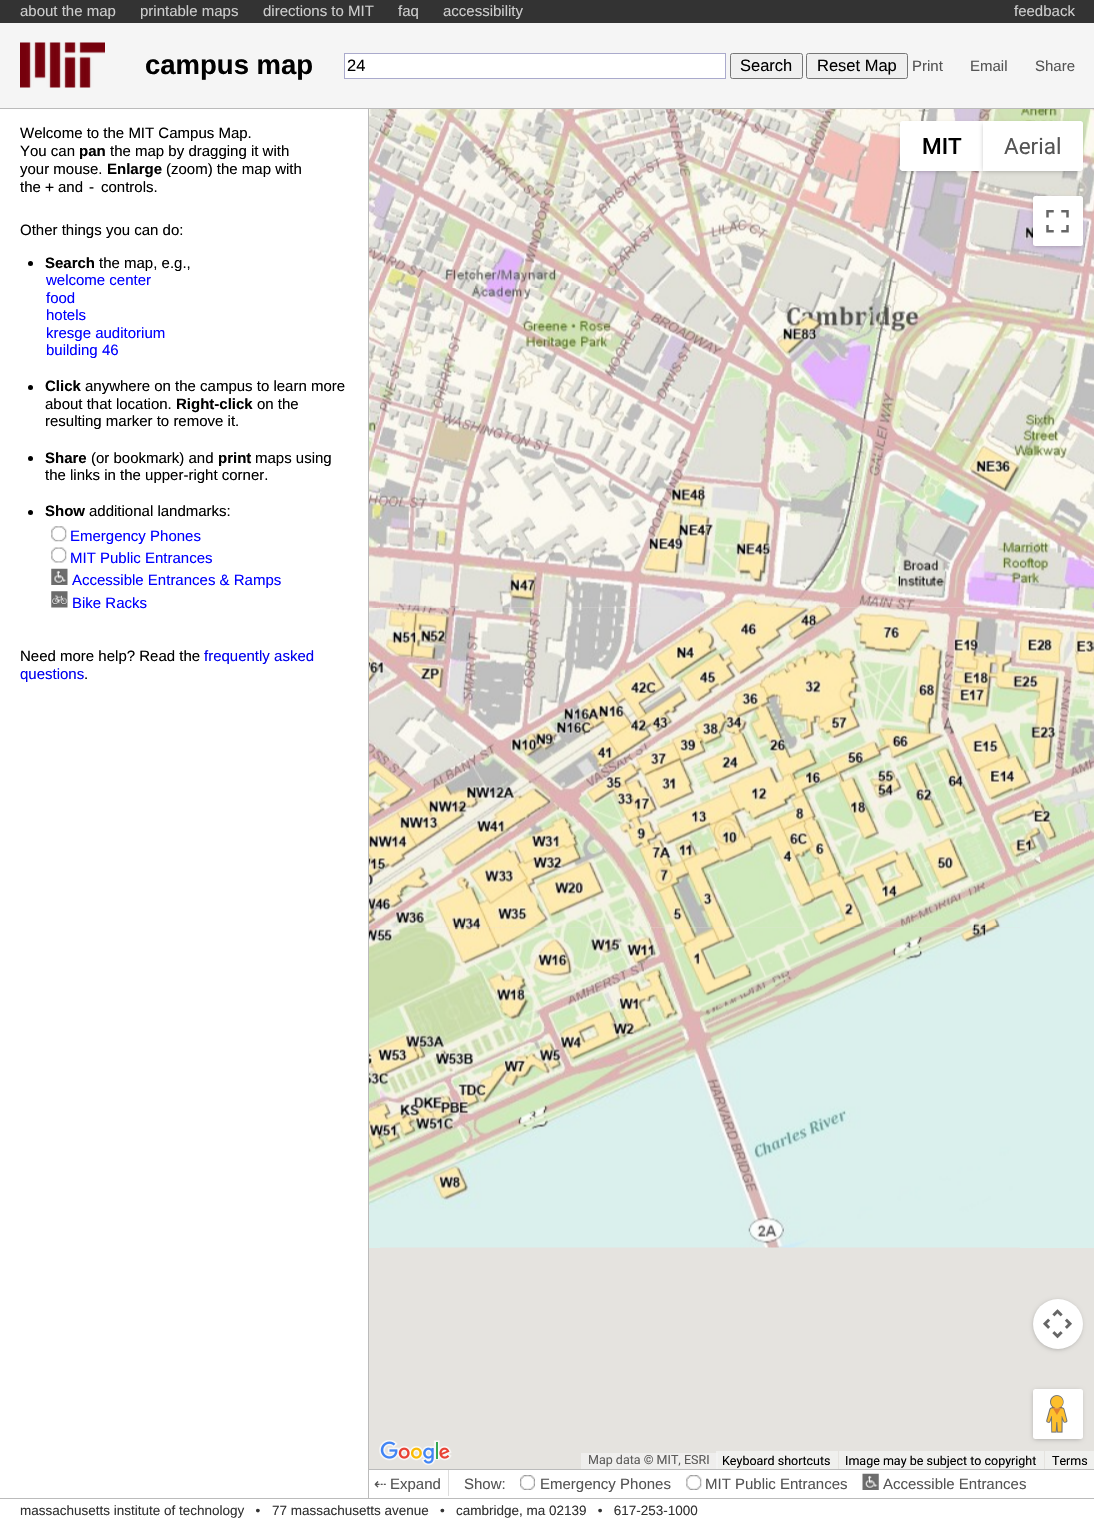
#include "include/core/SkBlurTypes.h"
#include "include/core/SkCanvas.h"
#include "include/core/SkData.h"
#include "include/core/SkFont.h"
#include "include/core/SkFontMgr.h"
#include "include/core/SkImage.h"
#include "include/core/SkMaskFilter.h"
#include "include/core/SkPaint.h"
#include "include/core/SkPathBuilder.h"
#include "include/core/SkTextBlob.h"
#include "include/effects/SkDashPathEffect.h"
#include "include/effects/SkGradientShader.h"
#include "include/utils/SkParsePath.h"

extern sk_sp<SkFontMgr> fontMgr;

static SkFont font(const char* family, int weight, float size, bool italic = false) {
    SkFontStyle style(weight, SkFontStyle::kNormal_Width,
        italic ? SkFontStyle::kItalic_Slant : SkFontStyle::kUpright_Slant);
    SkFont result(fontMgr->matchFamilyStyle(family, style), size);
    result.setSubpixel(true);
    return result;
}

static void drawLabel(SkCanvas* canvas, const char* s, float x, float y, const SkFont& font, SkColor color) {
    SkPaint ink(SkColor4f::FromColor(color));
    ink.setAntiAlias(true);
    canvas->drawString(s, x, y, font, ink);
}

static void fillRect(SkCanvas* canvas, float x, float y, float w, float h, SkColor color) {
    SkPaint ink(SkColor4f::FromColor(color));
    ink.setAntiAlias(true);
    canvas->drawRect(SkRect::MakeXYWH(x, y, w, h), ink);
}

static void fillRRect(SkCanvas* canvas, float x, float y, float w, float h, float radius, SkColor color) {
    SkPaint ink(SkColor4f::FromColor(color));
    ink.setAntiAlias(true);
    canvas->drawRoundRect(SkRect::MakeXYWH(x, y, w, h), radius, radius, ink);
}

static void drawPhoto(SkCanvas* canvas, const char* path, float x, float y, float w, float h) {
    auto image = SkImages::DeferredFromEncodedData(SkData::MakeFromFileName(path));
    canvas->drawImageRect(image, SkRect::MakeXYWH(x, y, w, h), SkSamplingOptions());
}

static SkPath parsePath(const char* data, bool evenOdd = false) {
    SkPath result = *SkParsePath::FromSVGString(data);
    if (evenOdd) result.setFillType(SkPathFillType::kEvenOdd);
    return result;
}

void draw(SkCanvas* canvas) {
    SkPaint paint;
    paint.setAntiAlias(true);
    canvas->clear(0xFFFFFFFF);
    fillRect(canvas, 0, 0, 1094, 23, 0xFF333333);
    SkFont font1 = font("Liberation Sans", 400, 15);
    drawLabel(canvas, "about the map", 20, 16, font1, 0xFFCCCCCC);
    drawLabel(canvas, "printable maps", 140, 16, font1, 0xFFCCCCCC);
    drawLabel(canvas, "directions to MIT", 263, 16, font1, 0xFFCCCCCC);
    drawLabel(canvas, "faq", 398, 16, font1, 0xFFCCCCCC);
    drawLabel(canvas, "accessibility", 443, 16, font1, 0xFFCCCCCC);
    drawLabel(canvas, "feedback", 1014, 16, font1, 0xFFCCCCCC);
    fillRect(canvas, 0, 23, 1094, 85, 0xFFF5F5F5);
    fillRect(canvas, 0, 108, 1094, 1, 0xFFBBBBBB);
    drawPhoto(canvas, "assets/img1.png", 20, 42, 85, 46);
    SkFont font2 = font("Liberation Sans", 700, 27.5f);
    drawLabel(canvas, "campus map", 145, 74, font2, 0xFF000000);
    paint.setColor(0xFFFFFFFF);
    canvas->drawRect(SkRect::MakeXYWH(344.5f, 53.5f, 381, 25), paint);
    paint.setStroke(true);
    paint.setStrokeWidth(1);
    paint.setColor(0xFFAAAACC);
    canvas->drawRect(SkRect::MakeXYWH(344.5f, 53.5f, 381, 25), paint);
    SkFont font3 = font("Liberation Sans", 400, 16.5f);
    drawLabel(canvas, "24", 347, 71, font3, 0xFF000000);
    paint.setStroke(false);
    paint.setColor(0xFFEFEFEF);
    canvas->drawRoundRect(SkRect::MakeXYWH(730.5f, 53.5f, 72, 25), 2, 2, paint);
    paint.setStroke(true);
    paint.setColor(0xFF767676);
    canvas->drawRoundRect(SkRect::MakeXYWH(730.5f, 53.5f, 72, 25), 2, 2, paint);
    drawLabel(canvas, "Search", 740, 71, font3, 0xFF000000);
    paint.setStroke(false);
    paint.setColor(0xFFEFEFEF);
    canvas->drawRoundRect(SkRect::MakeXYWH(806.5f, 53.5f, 101, 25), 2, 2, paint);
    paint.setStroke(true);
    paint.setColor(0xFF767676);
    canvas->drawRoundRect(SkRect::MakeXYWH(806.5f, 53.5f, 101, 25), 2, 2, paint);
    drawLabel(canvas, "Reset Map", 817, 71, font3, 0xFF000000);
    drawLabel(canvas, "Print", 912, 71, font1, 0xFF555555);
    drawLabel(canvas, "Email", 970, 71, font1, 0xFF555555);
    drawLabel(canvas, "Share", 1035, 71, font1, 0xFF555555);
    fillRect(canvas, 0, 1498, 1094, 1, 0xFFBBBBBB);
    fillRect(canvas, 368, 1469, 726, 1, 0xFFBBBBBB);
    fillRect(canvas, 368, 109, 1, 1389, 0xFFBBBBBB);
    drawLabel(canvas, "Welcome to the MIT Campus Map.", 20, 138, font1, 0xFF000000);
    drawLabel(canvas, "You can", 20, 156, font1, 0xFF000000);
    SkFont font4 = font("Liberation Sans", 700, 15);
    drawLabel(canvas, "pan", 79, 156, font4, 0xFF000000);
    drawLabel(canvas, "the map by dragging it with", 110, 156, font1, 0xFF000000);
    drawLabel(canvas, "your mouse.", 20, 174, font1, 0xFF000000);
    drawLabel(canvas, "Enlarge", 107, 174, font4, 0xFF000000);
    drawLabel(canvas, "(zoom) the map with", 166, 174, font1, 0xFF000000);
    drawLabel(canvas, "the", 20, 192, font1, 0xFF000000);
    SkFont font5 = font("DejaVu Sans Mono", 400, 15);
    drawLabel(canvas, "+", 45, 192, font5, 0xFF000000);
    drawLabel(canvas, "and", 58, 192, font1, 0xFF000000);
    drawLabel(canvas, "-", 87, 192, font5, 0xFF000000);
    drawLabel(canvas, "controls.", 101, 192, font1, 0xFF000000);
    drawLabel(canvas, "Other things you can do:", 20, 235, font1, 0xFF000000);
    paint.setStroke(false);
    paint.setColor(0xFF000000);
    canvas->drawCircle(30.5f, 263.5f, 2.5f, paint);
    drawLabel(canvas, "Search", 45, 268, font4, 0xFF000000);
    drawLabel(canvas, "the map, e.g.,", 99, 268, font1, 0xFF000000);
    drawLabel(canvas, "welcome center", 46, 285, font1, 0xFF0000FF);
    drawLabel(canvas, "food", 46, 303, font1, 0xFF0000FF);
    drawLabel(canvas, "hotels", 46, 320, font1, 0xFF0000FF);
    drawLabel(canvas, "kresge auditorium", 46, 338, font1, 0xFF0000FF);
    drawLabel(canvas, "building 46", 46, 355, font1, 0xFF0000FF);
    canvas->drawCircle(30.5f, 387.5f, 2.5f, paint);
    drawLabel(canvas, "Click", 45, 391, font4, 0xFF000000);
    drawLabel(canvas, "anywhere on the campus to learn more", 85, 391, font1, 0xFF000000);
    drawLabel(canvas, "about that location.", 45, 409, font1, 0xFF000000);
    drawLabel(canvas, "Right-click", 176, 409, font4, 0xFF000000);
    drawLabel(canvas, "on the", 257, 409, font1, 0xFF000000);
    drawLabel(canvas, "resulting marker to remove it.", 45, 426, font1, 0xFF000000);
    canvas->drawCircle(30.5f, 458.5f, 2.5f, paint);
    drawLabel(canvas, "Share", 45, 463, font4, 0xFF000000);
    drawLabel(canvas, "(or bookmark) and", 91, 463, font1, 0xFF000000);
    drawLabel(canvas, "print", 218, 463, font4, 0xFF000000);
    drawLabel(canvas, "maps using", 255, 463, font1, 0xFF000000);
    drawLabel(canvas, "the links in the upper-right corner.", 45, 480, font1, 0xFF000000);
    canvas->drawCircle(30.5f, 512.5f, 2.5f, paint);
    drawLabel(canvas, "Show", 45, 516, font4, 0xFF000000);
    drawLabel(canvas, "additional landmarks:", 89, 516, font1, 0xFF000000);
    drawPhoto(canvas, "assets/img2.png", 51, 526, 16, 16);
    drawLabel(canvas, "Emergency Phones", 70, 541, font1, 0xFF0000FF);
    drawPhoto(canvas, "assets/img3.png", 51, 547, 16, 16);
    drawLabel(canvas, "MIT Public Entrances", 70, 563, font1, 0xFF0000FF);
    drawPhoto(canvas, "assets/img4.png", 51, 568, 17, 17);
    drawLabel(canvas, "Accessible Entrances & Ramps", 72, 585, font1, 0xFF0000FF);
    drawPhoto(canvas, "assets/img5.png", 51, 591, 17, 17);
    drawLabel(canvas, "Bike Racks", 72, 608, font1, 0xFF0000FF);
    drawLabel(canvas, "Need more help? Read the", 20, 661, font1, 0xFF000000);
    drawLabel(canvas, "frequently asked", 204, 661, font1, 0xFF0000EE);
    drawLabel(canvas, "questions", 20, 679, font1, 0xFF0000EE);
    drawLabel(canvas, ".", 84, 679, font1, 0xFF000000);
    fillRect(canvas, 369, 607, 725, 862, 0xFFE5E3DF);
    fillRect(canvas, 716, 1451, 122, 18, 0xFFF0F0EE);
    drawPhoto(canvas, "assets/img6.png", 369, 109, 11, 179);
    drawPhoto(canvas, "assets/img7.png", 380, 109, 320, 179);
    drawPhoto(canvas, "assets/img8.png", 700, 109, 320, 179);
    drawPhoto(canvas, "assets/img9.png", 1020, 109, 74, 179);
    drawPhoto(canvas, "assets/img10.png", 369, 288, 11, 320);
    drawPhoto(canvas, "assets/img15.png", 380, 607, 320, 321);
    drawPhoto(canvas, "assets/img11.png", 380, 288, 320, 320);
    drawPhoto(canvas, "assets/img16.png", 700, 607, 320, 321);
    drawPhoto(canvas, "assets/img12.png", 700, 288, 320, 320);
    drawPhoto(canvas, "assets/img13.png", 1020, 288, 74, 320);
    drawPhoto(canvas, "assets/img14.png", 369, 608, 11, 320);
    drawPhoto(canvas, "assets/img17.png", 1020, 608, 74, 320);
    drawPhoto(canvas, "assets/img18.png", 369, 928, 11, 320);
    drawPhoto(canvas, "assets/img19.png", 380, 927, 320, 321);
    drawPhoto(canvas, "assets/img20.png", 700, 927, 320, 321);
    fillRect(canvas, 1020, 928, 74, 320, 0xFFDAF0ED);
    paint.setColor(0x4D000000);
    paint.setMaskFilter(SkMaskFilter::MakeBlur(kNormal_SkBlurStyle, 2.5f));
    canvas->drawRoundRect(SkRect::MakeXYWH(901, 124, 80, 47), 1, 1, paint);
    paint.setMaskFilter(nullptr);
    paint.setColor(0xFFFFFFFF);
    canvas->drawPath(parsePath("M902.5 121H983V171H902.5C901 171 900 170 900 168.5V123.5C900 122 901 121 902.5 121Z"), paint);
    SkFont font6 = font("Roboto", 500, 22.5f);
    drawLabel(canvas, "MIT", 922, 154, font6, 0xFF000000);
    paint.setColor(0x4D000000);
    paint.setMaskFilter(SkMaskFilter::MakeBlur(kNormal_SkBlurStyle, 2.5f));
    canvas->drawRoundRect(SkRect::MakeXYWH(984, 124, 97, 47), 1, 1, paint);
    paint.setMaskFilter(nullptr);
    paint.setColor(0xFFFFFFFF);
    canvas->drawPath(parsePath("M983 121H1080.5C1082 121 1083 122 1083 123.5V168.5C1083 170 1082 171 1080.5 171H983Z"), paint);
    SkFont font7 = font("Roboto", 400, 22.5f);
    drawLabel(canvas, "Aerial", 1004, 154, font7, 0xFF555555);
    paint.setColor(0x4D000000);
    paint.setMaskFilter(SkMaskFilter::MakeBlur(kNormal_SkBlurStyle, 2.5f));
    canvas->drawRoundRect(SkRect::MakeXYWH(1034, 199, 47, 47), 1, 1, paint);
    paint.setMaskFilter(nullptr);
    fillRRect(canvas, 1033, 196, 50, 50, 2.5f, 0xFFFFFFFF);
    drawPhoto(canvas, "assets/img21.png", 1046, 210, 23, 23);
    paint.setMaskFilter(SkMaskFilter::MakeBlur(kNormal_SkBlurStyle, 2.5f));
    canvas->drawRoundRect(SkRect::MakeXYWH(1034, 1301, 47, 48), 23.5f, 23.5f, paint);
    paint.setMaskFilter(nullptr);
    paint.setColor(0xFFFFFFFF);
    canvas->drawCircle(1058, 1324, 25, paint);
    drawPhoto(canvas, "assets/img22.png", 1043, 1309, 29, 30);
    paint.setColor(0x4D000000);
    paint.setMaskFilter(SkMaskFilter::MakeBlur(kNormal_SkBlurStyle, 2.5f));
    canvas->drawRoundRect(SkRect::MakeXYWH(1034, 1391, 47, 48), 1, 1, paint);
    paint.setMaskFilter(nullptr);
    fillRRect(canvas, 1033, 1389, 50, 50, 2.5f, 0xFFFFFFFF);
    drawPhoto(canvas, "assets/img23.png", 1046, 1395, 22, 38);
    drawPhoto(canvas, "assets/img24.png", 379, 1440, 73, 26);
    fillRect(canvas, 581, 1453, 135, 16, 0xFFEFEEED);
    fillRect(canvas, 716, 1453, 2, 16, 0xFFF3F3F3);
    SkFont font8 = font("Roboto", 400, 12.5f);
    drawLabel(canvas, "Map data © MIT, ESRI", 588, 1464, font8, 0xFF5D5C5B);
    drawLabel(canvas, "Keyboard shortcuts", 722, 1465, font8, 0xFF000000);
    fillRect(canvas, 839, 1451, 205, 18, 0xFFF0F0EE);
    drawLabel(canvas, "Image may be subject to copyright", 845, 1465, font8, 0xFF000000);
    fillRect(canvas, 1045, 1451, 49, 18, 0xFFF0F0EE);
    drawLabel(canvas, "Terms", 1052, 1465, font8, 0xFF000000);
    fillRect(canvas, 448, 1470, 1, 26, 0xFFDDDDDD);
    SkFont font9 = font("DejaVu Sans", 400, 15);
    drawLabel(canvas, "⇠", 374, 1489, font9, 0xFF555555);
    drawLabel(canvas, "Expand", 390, 1489, font1, 0xFF555555);
    drawLabel(canvas, "Show:", 464, 1489, font1, 0xFF555555);
    drawPhoto(canvas, "assets/img25.png", 520, 1475, 15, 15);
    drawLabel(canvas, "Emergency Phones", 540, 1489, font1, 0xFF555555);
    drawPhoto(canvas, "assets/img26.png", 686, 1475, 16, 15);
    drawLabel(canvas, "MIT Public Entrances", 705, 1489, font1, 0xFF555555);
    drawPhoto(canvas, "assets/img27.png", 862, 1473, 17, 17);
    drawLabel(canvas, "Accessible Entrances", 883, 1489, font1, 0xFF555555);
    SkFont font10 = font("Liberation Sans", 400, 13.5f);
    drawLabel(canvas, "massachusetts institute of technology   •", 20, 1515, font10, 0xFF333333);
    drawLabel(canvas, "77 massachusetts avenue", 272, 1515, font10, 0xFF333333);
    drawLabel(canvas, "•   cambridge, ma 02139   •   617-253-1000", 440, 1515, font10, 0xFF333333);
}
